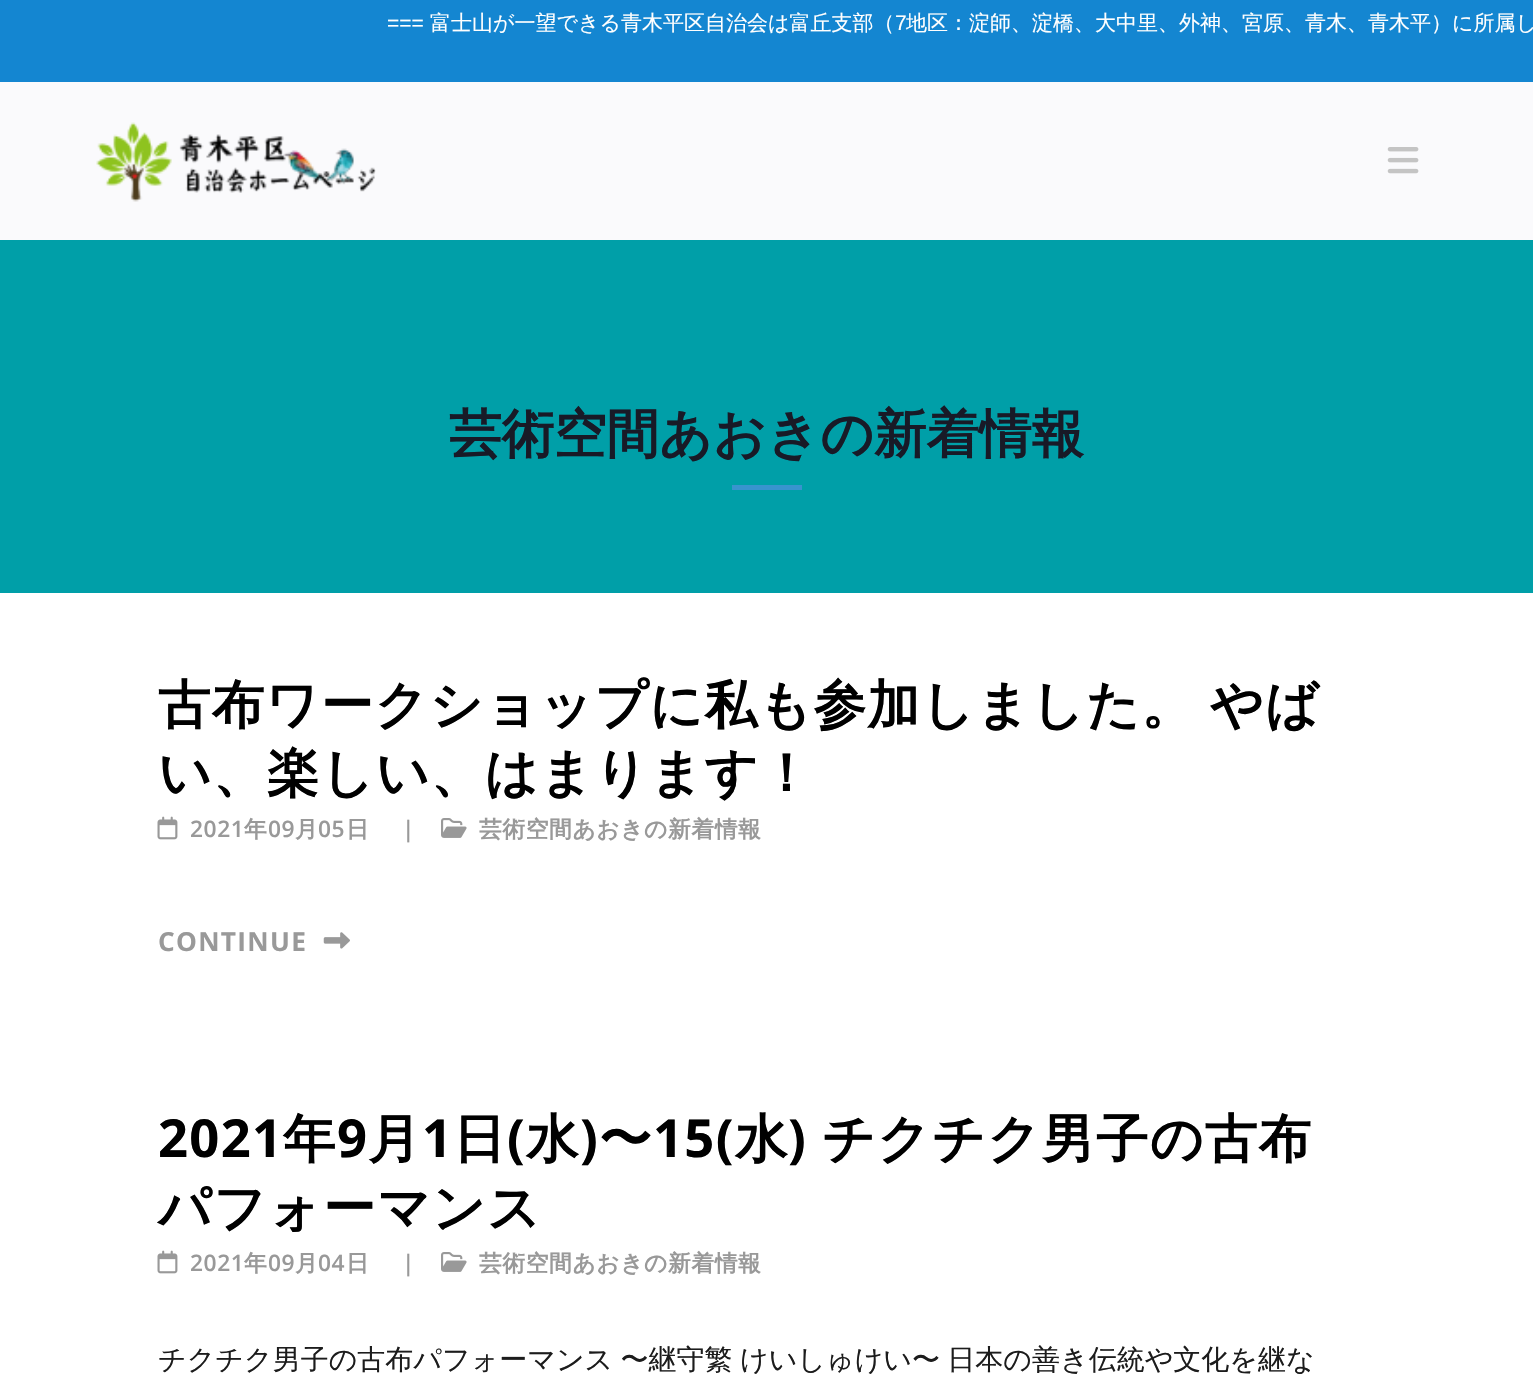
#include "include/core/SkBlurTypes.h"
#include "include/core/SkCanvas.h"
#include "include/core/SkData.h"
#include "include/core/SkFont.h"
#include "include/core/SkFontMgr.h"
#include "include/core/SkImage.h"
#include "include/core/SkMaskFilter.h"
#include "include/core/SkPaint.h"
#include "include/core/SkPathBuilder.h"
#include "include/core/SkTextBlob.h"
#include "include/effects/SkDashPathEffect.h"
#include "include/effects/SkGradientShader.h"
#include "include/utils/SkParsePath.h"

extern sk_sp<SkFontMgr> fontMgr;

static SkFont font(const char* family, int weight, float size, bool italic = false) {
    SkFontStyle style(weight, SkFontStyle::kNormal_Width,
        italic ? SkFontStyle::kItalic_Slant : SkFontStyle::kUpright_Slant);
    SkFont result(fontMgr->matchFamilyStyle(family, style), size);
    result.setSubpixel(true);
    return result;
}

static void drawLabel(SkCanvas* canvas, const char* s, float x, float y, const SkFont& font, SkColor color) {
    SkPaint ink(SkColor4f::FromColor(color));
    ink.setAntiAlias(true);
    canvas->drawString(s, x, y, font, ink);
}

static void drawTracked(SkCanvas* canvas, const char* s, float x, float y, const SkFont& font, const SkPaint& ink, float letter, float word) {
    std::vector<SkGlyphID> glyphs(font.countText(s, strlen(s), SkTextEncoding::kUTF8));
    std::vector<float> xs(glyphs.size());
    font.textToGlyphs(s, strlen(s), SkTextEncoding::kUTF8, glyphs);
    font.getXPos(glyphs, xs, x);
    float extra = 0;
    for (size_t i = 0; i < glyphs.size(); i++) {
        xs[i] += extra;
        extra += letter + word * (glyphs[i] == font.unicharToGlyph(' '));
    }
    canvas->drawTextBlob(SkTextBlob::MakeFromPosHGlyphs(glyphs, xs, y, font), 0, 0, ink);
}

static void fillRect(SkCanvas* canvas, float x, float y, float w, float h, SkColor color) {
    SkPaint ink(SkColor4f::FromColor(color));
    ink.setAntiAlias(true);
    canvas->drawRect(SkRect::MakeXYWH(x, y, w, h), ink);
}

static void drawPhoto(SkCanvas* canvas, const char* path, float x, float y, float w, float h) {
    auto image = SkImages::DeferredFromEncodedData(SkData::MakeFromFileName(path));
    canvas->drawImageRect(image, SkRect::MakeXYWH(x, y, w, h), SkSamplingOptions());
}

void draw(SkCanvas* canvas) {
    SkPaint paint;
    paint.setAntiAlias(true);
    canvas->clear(0xFFFFFFFF);
    fillRect(canvas, 0, 0, 1533, 82, 0xFF1486D1);
    SkFont font1 = font("Liberation Sans", 400, 21);
    drawLabel(canvas, "===", 387, 30, font1, 0xFFFFFFFF);
    SkFont font2 = font("WenQuanYi Zen Hei", 500, 21);
    drawLabel(canvas, "富士山が一望できる青木平区自治会は富丘支部（", 430, 30, font2, 0xFFFFFFFF);
    drawLabel(canvas, "7", 895, 30, font1, 0xFFFFFFFF);
    drawLabel(canvas, "地区：淀師、淀橋、大中里、外神、宮原、青木、青木平）に所属し", 906, 30, font2, 0xFFFFFFFF);
    fillRect(canvas, 0, 82, 1533, 158, 0xFFFAFAFC);
    drawPhoto(canvas, "assets/img1.png", 96, 122, 280, 80);
    drawPhoto(canvas, "assets/img2.png", 1387, 147, 32, 27);
    fillRect(canvas, 0, 240, 1533, 353, 0xFF009FA8);
    SkFont font3 = font("WenQuanYi Zen Hei", 700, 52.5f);
    drawLabel(canvas, "芸術空間あおきの新着情報", 449, 452, font3, 0xFF181A27);
    fillRect(canvas, 732, 485, 70, 5, 0xFF3894CE);
    paint.setColor(0xFF000000);
    drawTracked(canvas, "古布ワークショップに私も参加しました。 やば", 158, 723, font3, paint, 1.3f, -2);
    drawTracked(canvas, "い、楽しい、はまります！", 158, 791, font3, paint, 1.3f, 0);
    drawPhoto(canvas, "assets/img3.png", 157, 816, 21, 24);
    SkFont font4 = font("Open Sans", 600, 22.75f);
    paint.setColor(0xFF999999);
    drawTracked(canvas, "2021", 190, 837, font4, paint, 0.6f, 0);
    SkFont font5 = font("WenQuanYi Zen Hei", 700, 22.75f);
    drawTracked(canvas, "年", 244, 837, font5, paint, 0.6f, 0);
    drawTracked(canvas, "09", 268, 837, font4, paint, 0.6f, 0);
    drawTracked(canvas, "月", 295, 837, font5, paint, 0.6f, 0);
    drawTracked(canvas, "05", 318, 837, font4, paint, 0.6f, 0);
    drawTracked(canvas, "日", 346, 837, font5, paint, 0.6f, 0);
    drawTracked(canvas, "|", 402, 837, font4, paint, 0.6f, 0);
    drawPhoto(canvas, "assets/img4.png", 441, 818, 26, 20);
    drawTracked(canvas, "芸術空間あおきの新着情報", 479, 837, font5, paint, 0.6f, 0);
    SkFont font6 = font("Open Sans", 700, 26.25f);
    drawTracked(canvas, "CONTINUE", 158, 951, font6, paint, 1.3f, 0);
    drawPhoto(canvas, "assets/img5.png", 323, 932, 27, 17);
    SkFont font7 = font("Open Sans", 700, 52.5f);
    paint.setColor(0xFF000000);
    drawTracked(canvas, "2021", 158, 1157, font7, paint, 1.3f, 0);
    drawTracked(canvas, "年", 283, 1157, font3, paint, 1.3f, 0);
    drawTracked(canvas, "9", 337, 1157, font7, paint, 1.3f, 0);
    drawTracked(canvas, "月", 368, 1157, font3, paint, 1.3f, 0);
    drawTracked(canvas, "1", 422, 1157, font7, paint, 1.3f, 0);
    drawTracked(canvas, "日", 453, 1157, font3, paint, 1.3f, 0);
    drawTracked(canvas, "(", 507, 1157, font7, paint, 1.3f, 0);
    drawTracked(canvas, "水", 526, 1157, font3, paint, 1.3f, 0);
    drawTracked(canvas, ")", 580, 1157, font7, paint, 1.3f, 0);
    drawTracked(canvas, "〜", 599, 1157, font3, paint, 1.3f, 0);
    drawTracked(canvas, "15(", 653, 1157, font7, paint, 1.3f, 0);
    drawTracked(canvas, "水", 735, 1157, font3, paint, 1.3f, 0);
    drawTracked(canvas, ")", 788, 1157, font7, paint, 1.3f, 0);
    drawTracked(canvas, "チクチク男子の古布", 822, 1157, font3, paint, 1.3f, 0);
    drawTracked(canvas, "パフォーマンス", 158, 1226, font3, paint, 1.3f, 0);
    drawPhoto(canvas, "assets/img3.png", 157, 1250, 21, 24);
    paint.setColor(0xFF999999);
    drawTracked(canvas, "2021", 190, 1271, font4, paint, 0.6f, 0);
    drawTracked(canvas, "年", 244, 1271, font5, paint, 0.6f, 0);
    drawTracked(canvas, "09", 268, 1271, font4, paint, 0.6f, 0);
    drawTracked(canvas, "月", 295, 1271, font5, paint, 0.6f, 0);
    drawTracked(canvas, "04", 318, 1271, font4, paint, 0.6f, 0);
    drawTracked(canvas, "日", 346, 1271, font5, paint, 0.6f, 0);
    drawTracked(canvas, "|", 402, 1271, font4, paint, 0.6f, 0);
    drawPhoto(canvas, "assets/img4.png", 441, 1252, 26, 20);
    drawTracked(canvas, "芸術空間あおきの新着情報", 479, 1271, font5, paint, 0.6f, 0);
    SkFont font8 = font("WenQuanYi Zen Hei", 500, 28);
    paint.setColor(0xFF1C1C1C);
    drawTracked(canvas, "チクチク男子の古布パフォーマンス 〜継守繁 けいしゅけい〜 日本の善き伝統や文化を継な", 158, 1369, font8, paint, 0, -1);
}
